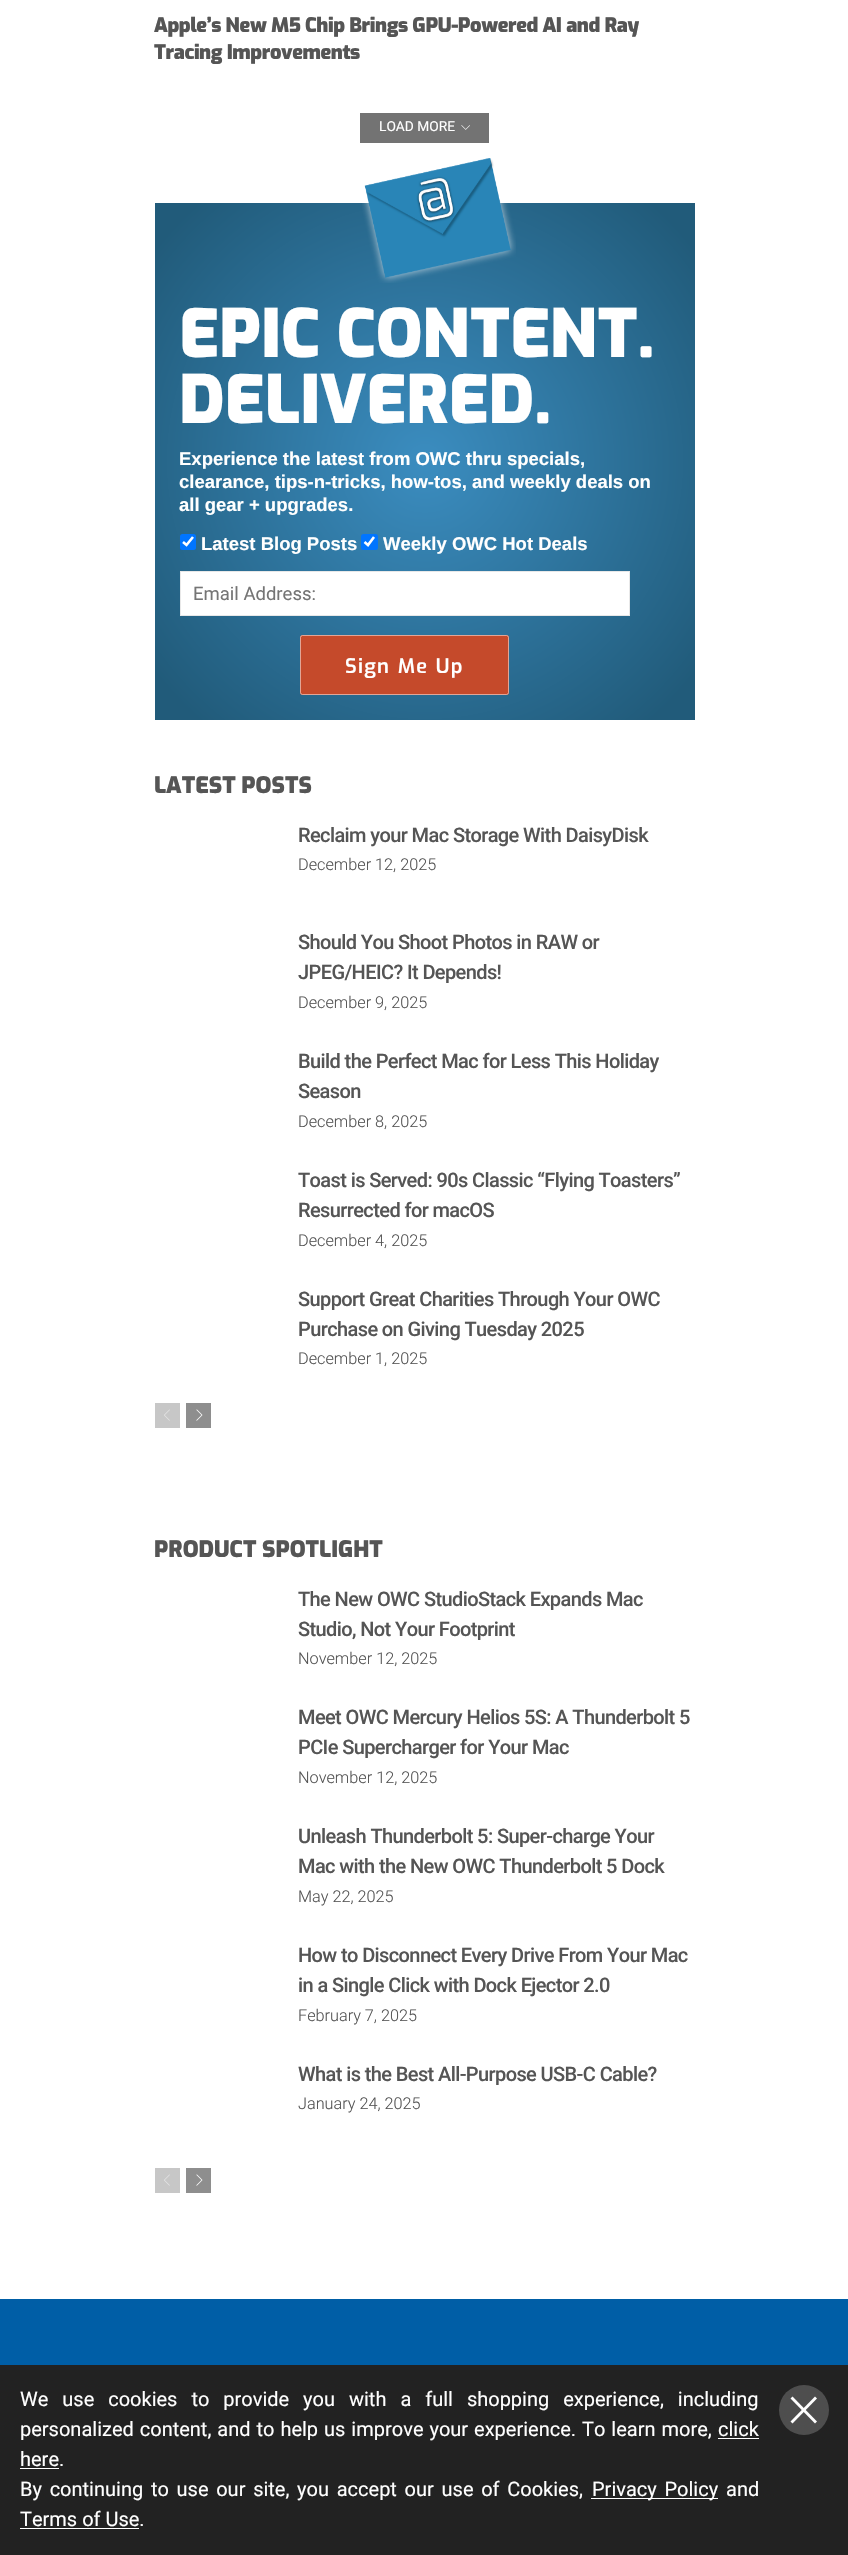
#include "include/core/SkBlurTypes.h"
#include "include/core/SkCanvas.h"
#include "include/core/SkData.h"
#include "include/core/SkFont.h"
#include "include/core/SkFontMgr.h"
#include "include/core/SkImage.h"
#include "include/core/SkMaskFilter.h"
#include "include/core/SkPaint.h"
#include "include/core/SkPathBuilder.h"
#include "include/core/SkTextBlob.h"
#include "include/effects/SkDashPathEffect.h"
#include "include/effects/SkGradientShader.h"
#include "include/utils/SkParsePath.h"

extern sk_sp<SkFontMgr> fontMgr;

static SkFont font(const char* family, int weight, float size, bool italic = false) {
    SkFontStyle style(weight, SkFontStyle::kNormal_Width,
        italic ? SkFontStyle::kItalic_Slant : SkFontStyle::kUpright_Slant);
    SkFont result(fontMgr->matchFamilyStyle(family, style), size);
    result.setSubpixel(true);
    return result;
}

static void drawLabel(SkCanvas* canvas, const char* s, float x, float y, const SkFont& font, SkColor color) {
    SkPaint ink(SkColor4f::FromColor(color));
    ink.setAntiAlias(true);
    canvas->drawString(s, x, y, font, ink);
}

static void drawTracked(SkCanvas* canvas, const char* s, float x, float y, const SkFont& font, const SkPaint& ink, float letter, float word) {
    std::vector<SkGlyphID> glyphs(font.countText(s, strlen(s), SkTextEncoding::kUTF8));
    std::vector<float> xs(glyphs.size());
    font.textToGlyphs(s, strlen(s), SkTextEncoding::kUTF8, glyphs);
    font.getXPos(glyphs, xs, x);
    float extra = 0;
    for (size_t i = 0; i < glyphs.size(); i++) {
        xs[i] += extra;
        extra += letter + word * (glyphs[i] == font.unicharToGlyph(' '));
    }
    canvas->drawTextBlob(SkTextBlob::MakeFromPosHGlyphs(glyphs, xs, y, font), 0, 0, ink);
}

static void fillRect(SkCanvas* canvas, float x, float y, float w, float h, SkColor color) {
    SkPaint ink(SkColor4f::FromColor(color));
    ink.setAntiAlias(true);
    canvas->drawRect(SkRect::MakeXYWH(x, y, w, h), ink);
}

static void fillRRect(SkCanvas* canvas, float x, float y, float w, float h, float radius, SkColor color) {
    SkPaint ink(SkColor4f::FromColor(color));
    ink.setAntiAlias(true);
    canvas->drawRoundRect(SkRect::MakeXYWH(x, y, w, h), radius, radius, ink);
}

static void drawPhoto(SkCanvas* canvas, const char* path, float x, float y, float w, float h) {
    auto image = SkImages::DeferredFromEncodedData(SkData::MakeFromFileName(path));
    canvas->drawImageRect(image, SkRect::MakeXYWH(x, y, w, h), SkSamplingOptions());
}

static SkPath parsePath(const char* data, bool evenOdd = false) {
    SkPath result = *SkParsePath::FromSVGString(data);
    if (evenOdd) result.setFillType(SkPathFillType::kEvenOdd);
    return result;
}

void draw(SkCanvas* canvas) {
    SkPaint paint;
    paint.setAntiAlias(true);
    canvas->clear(0xFFFFFFFF);
    SkFont font1 = font("Exo", 900, 20);
    paint.setColor(0xFF555555);
    drawTracked(canvas, "Apple’s New M5 Chip Brings GPU-Powered AI and Ray", 154, 32, font1, paint, -0.4f, 0);
    drawTracked(canvas, "Tracing Improvements", 154, 59, font1, paint, -0.4f, 0);
    fillRect(canvas, 360, 113, 129, 30, 0xFF737373);
    SkFont font2 = font("Roboto", 400, 13.75f);
    drawLabel(canvas, "LOAD MORE", 379, 131, font2, 0xFFFFFFFF);
    drawPhoto(canvas, "assets/img1.png", 461, 125, 9, 5);
    {
        const SkColor colors[] = {0xFF3B8DC0, 0xFF215B7A};
        const float stops[] = {0, 0.92f};
        paint.setShader(SkGradientShader::MakeRadial({425, 461}, 374, colors, stops, 2, SkTileMode::kClamp));
        paint.setAlpha(255);
    }
    canvas->drawRect(SkRect::MakeXYWH(155, 203, 540, 517), paint);
    drawPhoto(canvas, "assets/img2.png", 362, 158, 154, 125);
    SkFont font3 = font("Exo", 900, 66.25f);
    drawLabel(canvas, "EPIC CONTENT.", 179, 357, font3, 0xFFFFFFFF);
    drawLabel(canvas, "DELIVERED.", 179, 423, font3, 0xFFFFFFFF);
    SkFont font4 = font("Liberation Sans", 700, 18.5f);
    drawLabel(canvas, "Experience the latest from OWC thru specials,", 179, 465, font4, 0xFFFFFFFF);
    drawLabel(canvas, "clearance, tips-n-tricks, how-tos, and weekly deals on", 179, 488, font4, 0xFFFFFFFF);
    drawLabel(canvas, "all gear + upgrades.", 179, 511, font4, 0xFFFFFFFF);
    fillRRect(canvas, 180, 534, 16, 16, 2.5f, 0xFF0075FF);
    paint.setStroke(true);
    paint.setStrokeWidth(2.6f);
    paint.setShader(nullptr);
    paint.setColor(0xFFFFFFFF);
    canvas->drawPath(parsePath("M183 542L186.5 545L193 537"), paint);
    drawLabel(canvas, "Latest Blog Posts", 201, 550, font4, 0xFFFFFFFF);
    fillRRect(canvas, 361, 534, 17, 16, 2.5f, 0xFF0075FF);
    canvas->drawPath(parsePath("M364.5 542L368 545L374 537"), paint);
    drawLabel(canvas, "Weekly OWC Hot Deals", 383, 550, font4, 0xFFFFFFFF);
    paint.setStroke(false);
    canvas->drawRect(SkRect::MakeXYWH(180.5f, 571.5f, 449, 44), paint);
    paint.setStroke(true);
    paint.setStrokeWidth(1);
    paint.setColor(0xFFE8E8E8);
    canvas->drawRect(SkRect::MakeXYWH(180.5f, 571.5f, 449, 44), paint);
    SkFont font5 = font("Roboto", 400, 18.5f);
    drawLabel(canvas, "Email Address:", 193, 600, font5, 0xFF757575);
    fillRRect(canvas, 300, 635, 209, 60, 2.5f, 0xFFC54A2B);
    paint.setColor(0x80FFFFFF);
    canvas->drawRoundRect(SkRect::MakeXYWH(300.5f, 635.5f, 208, 59), 2, 2, paint);
    SkFont font6 = font("Exo", 600, 20);
    paint.setStroke(false);
    paint.setColor(0xFFFFFFFF);
    drawTracked(canvas, "Sign Me Up", 345, 673, font6, paint, 1.25f, 1);
    SkFont font7 = font("Exo", 900, 22.5f);
    drawLabel(canvas, "LATEST POSTS", 154, 793, font7, 0xFF555555);
    SkFont font8 = font("Roboto", 500, 20);
    paint.setColor(0xFF555555);
    drawTracked(canvas, "Reclaim your Mac Storage With DaisyDisk", 298, 842, font8, paint, -0.6f, 0);
    SkFont font9 = font("Roboto", 300, 16.25f);
    drawLabel(canvas, "December 12, 2025", 298, 870, font9, 0xFF555555);
    drawTracked(canvas, "Should You Shoot Photos in RAW or", 298, 949, font8, paint, -0.6f, 0);
    drawTracked(canvas, "JPEG/HEIC? It Depends!", 298, 979, font8, paint, -0.6f, 0);
    drawLabel(canvas, "December 9, 2025", 298, 1008, font9, 0xFF555555);
    drawTracked(canvas, "Build the Perfect Mac for Less This Holiday", 298, 1068, font8, paint, -0.6f, 0);
    drawTracked(canvas, "Season", 298, 1098, font8, paint, -0.6f, 0);
    drawLabel(canvas, "December 8, 2025", 298, 1127, font9, 0xFF555555);
    drawTracked(canvas, "Toast is Served: 90s Classic “Flying Toasters”", 298, 1187, font8, paint, -0.6f, 0);
    drawTracked(canvas, "Resurrected for macOS", 298, 1217, font8, paint, -0.6f, 0);
    drawLabel(canvas, "December 4, 2025", 298, 1246, font9, 0xFF555555);
    drawTracked(canvas, "Support Great Charities Through Your OWC", 298, 1306, font8, paint, -0.6f, 0);
    drawTracked(canvas, "Purchase on Giving Tuesday 2025", 298, 1336, font8, paint, -0.6f, 0);
    drawLabel(canvas, "December 1, 2025", 298, 1364, font9, 0xFF555555);
    fillRect(canvas, 155, 1403, 25, 25, 0xFFC7C7C7);
    drawPhoto(canvas, "assets/img3.png", 164, 1409, 6, 12);
    fillRect(canvas, 186, 1403, 25, 25, 0xFF8E8E8E);
    drawPhoto(canvas, "assets/img4.png", 196, 1409, 7, 12);
    drawLabel(canvas, "PRODUCT SPOTLIGHT", 154, 1557, font7, 0xFF555555);
    drawTracked(canvas, "The New OWC StudioStack Expands Mac", 298, 1606, font8, paint, -0.6f, 0);
    drawTracked(canvas, "Studio, Not Your Footprint", 298, 1636, font8, paint, -0.6f, 0);
    drawLabel(canvas, "November 12, 2025", 298, 1664, font9, 0xFF555555);
    drawTracked(canvas, "Meet OWC Mercury Helios 5S: A Thunderbolt 5", 298, 1724, font8, paint, -0.6f, 0);
    drawTracked(canvas, "PCIe Supercharger for Your Mac", 298, 1754, font8, paint, -0.6f, 0);
    drawLabel(canvas, "November 12, 2025", 298, 1783, font9, 0xFF555555);
    drawTracked(canvas, "Unleash Thunderbolt 5: Super-charge Your", 298, 1843, font8, paint, -0.6f, 0);
    drawTracked(canvas, "Mac with the New OWC Thunderbolt 5 Dock", 298, 1873, font8, paint, -0.6f, 0);
    drawLabel(canvas, "May 22, 2025", 298, 1902, font9, 0xFF555555);
    drawTracked(canvas, "How to Disconnect Every Drive From Your Mac", 298, 1962, font8, paint, -0.6f, 0);
    drawTracked(canvas, "in a Single Click with Dock Ejector 2.0", 298, 1992, font8, paint, -0.6f, 0);
    drawLabel(canvas, "February 7, 2025", 298, 2021, font9, 0xFF555555);
    drawTracked(canvas, "What is the Best All-Purpose USB-C Cable?", 298, 2081, font8, paint, -0.6f, 0);
    drawLabel(canvas, "January 24, 2025", 298, 2109, font9, 0xFF555555);
    fillRect(canvas, 155, 2168, 25, 25, 0xFFC7C7C7);
    drawPhoto(canvas, "assets/img3.png", 164, 2174, 6, 12);
    fillRect(canvas, 186, 2168, 25, 25, 0xFF8E8E8E);
    drawPhoto(canvas, "assets/img4.png", 196, 2174, 7, 12);
    fillRect(canvas, 0, 2299, 848, 66, 0xFF005EA6);
    fillRect(canvas, 0, 2365, 848, 190, 0xFF222222);
    SkFont font10 = font("Roboto", 400, 20);
    paint.setColor(0xFFFFFFFF);
    drawTracked(canvas, "We use cookies to provide you with a full shopping experience, including", 20, 2406, font10, paint, 0, 9);
    drawTracked(canvas, "personalized content, and to help us improve your experience. To learn more,", 20, 2436, font10, paint, 0, 1);
    drawLabel(canvas, "click", 718, 2436, font10, 0xFFFFFFFF);
    fillRect(canvas, 718, 2438, 41, 1, 0xFFFFFFFF);
    drawLabel(canvas, "here.", 20, 2466, font10, 0xFFFFFFFF);
    fillRect(canvas, 20, 2468, 39, 1, 0xFFFFFFFF);
    paint.setColor(0xFF4E4E4E);
    canvas->drawCircle(804, 2410, 25, paint);
    paint.setColor(0xFFFFFFFF);
    canvas->drawPath(parsePath("M792.5 2396.5L817 2421.5L815 2423.5L790.5 2398.5Z"), paint);
    canvas->drawPath(parsePath("M790.5 2421.5L815 2396.5L817 2398.5L792.5 2423.5Z"), paint);
    drawTracked(canvas, "By continuing to use our site, you accept our use of Cookies,", 20, 2496, font10, paint, 0, 2.75f);
    fillRect(canvas, 591, 2498, 127, 1, 0xFFFFFFFF);
    drawTracked(canvas, "Privacy Policy", 592, 2496, font10, paint, 0, 2.75f);
    drawLabel(canvas, "and", 726, 2496, font10, 0xFFFFFFFF);
    drawLabel(canvas, "Terms of Use.", 20, 2526, font10, 0xFFFFFFFF);
    fillRect(canvas, 20, 2528, 119, 1, 0xFFFFFFFF);
}
